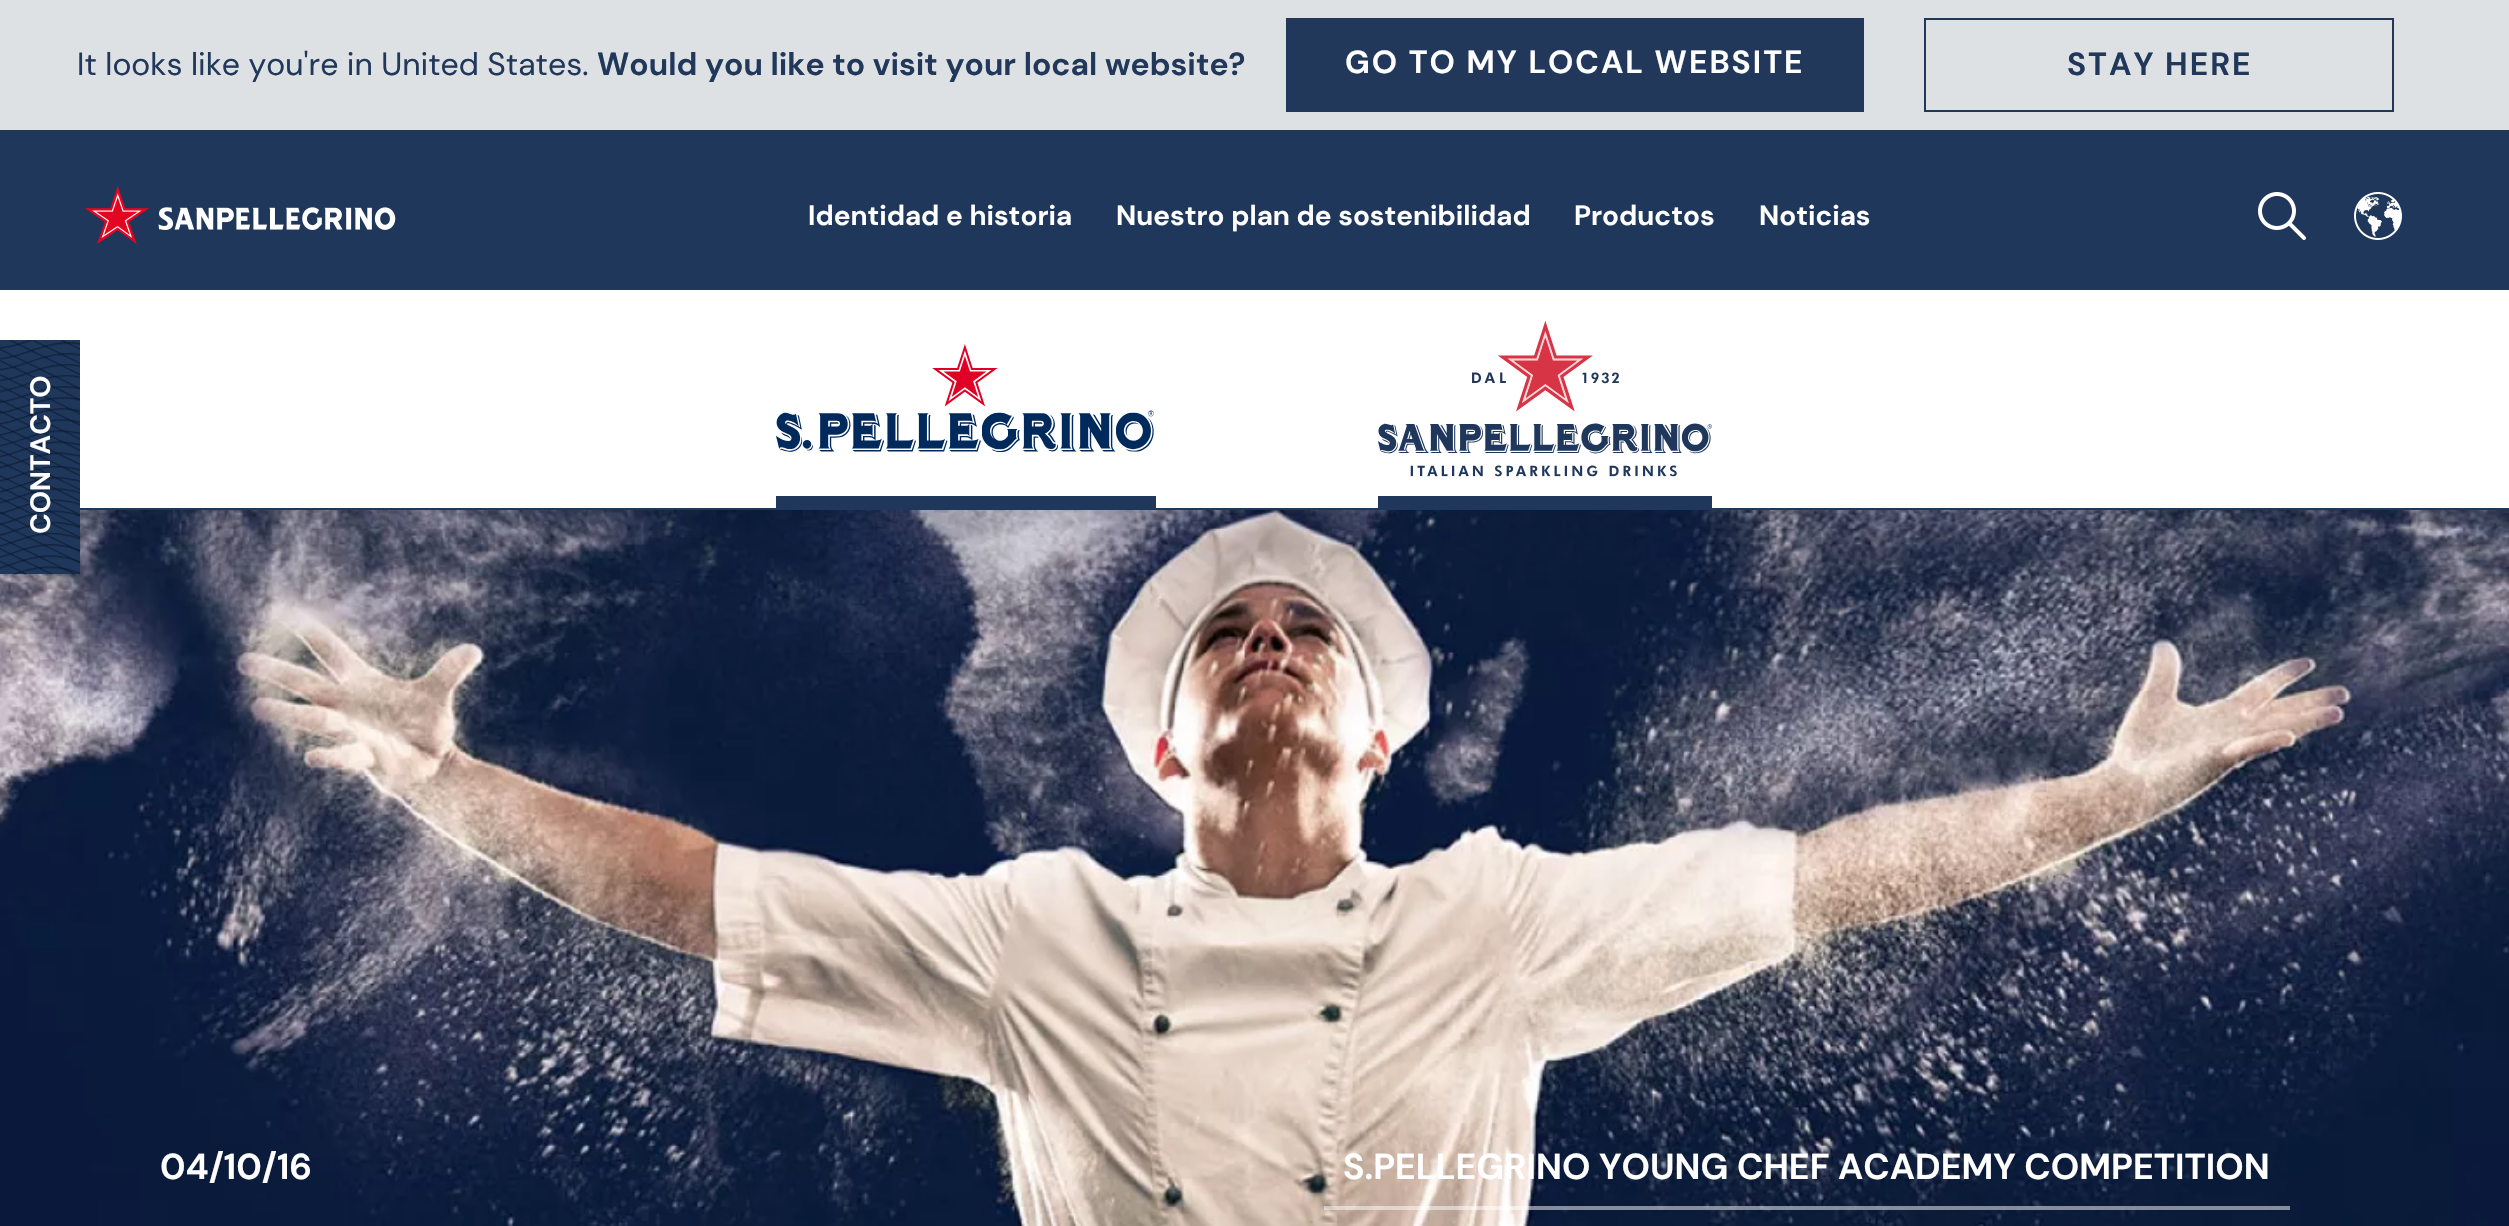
#include "include/core/SkBlurTypes.h"
#include "include/core/SkCanvas.h"
#include "include/core/SkData.h"
#include "include/core/SkFont.h"
#include "include/core/SkFontMgr.h"
#include "include/core/SkImage.h"
#include "include/core/SkMaskFilter.h"
#include "include/core/SkPaint.h"
#include "include/core/SkPathBuilder.h"
#include "include/core/SkTextBlob.h"
#include "include/effects/SkDashPathEffect.h"
#include "include/effects/SkGradientShader.h"
#include "include/utils/SkParsePath.h"

extern sk_sp<SkFontMgr> fontMgr;

static SkFont font(const char* family, int weight, float size, bool italic = false) {
    SkFontStyle style(weight, SkFontStyle::kNormal_Width,
        italic ? SkFontStyle::kItalic_Slant : SkFontStyle::kUpright_Slant);
    SkFont result(fontMgr->matchFamilyStyle(family, style), size);
    result.setSubpixel(true);
    return result;
}

static void drawLabel(SkCanvas* canvas, const char* s, float x, float y, const SkFont& font, SkColor color) {
    SkPaint ink(SkColor4f::FromColor(color));
    ink.setAntiAlias(true);
    canvas->drawString(s, x, y, font, ink);
}

static void drawTracked(SkCanvas* canvas, const char* s, float x, float y, const SkFont& font, const SkPaint& ink, float letter, float word) {
    std::vector<SkGlyphID> glyphs(font.countText(s, strlen(s), SkTextEncoding::kUTF8));
    std::vector<float> xs(glyphs.size());
    font.textToGlyphs(s, strlen(s), SkTextEncoding::kUTF8, glyphs);
    font.getXPos(glyphs, xs, x);
    float extra = 0;
    for (size_t i = 0; i < glyphs.size(); i++) {
        xs[i] += extra;
        extra += letter + word * (glyphs[i] == font.unicharToGlyph(' '));
    }
    canvas->drawTextBlob(SkTextBlob::MakeFromPosHGlyphs(glyphs, xs, y, font), 0, 0, ink);
}

static void fillRect(SkCanvas* canvas, float x, float y, float w, float h, SkColor color) {
    SkPaint ink(SkColor4f::FromColor(color));
    ink.setAntiAlias(true);
    canvas->drawRect(SkRect::MakeXYWH(x, y, w, h), ink);
}

static void drawPhoto(SkCanvas* canvas, const char* path, float x, float y, float w, float h) {
    auto image = SkImages::DeferredFromEncodedData(SkData::MakeFromFileName(path));
    canvas->drawImageRect(image, SkRect::MakeXYWH(x, y, w, h), SkSamplingOptions());
}

void draw(SkCanvas* canvas) {
    SkPaint paint;
    paint.setAntiAlias(true);
    canvas->clear(0xFFFFFFFF);
    fillRect(canvas, 0, 0, 2509, 130, 0xFFDDE1E4);
    SkFont font1 = font("DM Sans", 400, 32);
    drawLabel(canvas, "It looks like you're in United States.", 77, 75, font1, 0xFF21385B);
    SkFont font2 = font("DM Sans", 700, 32);
    drawLabel(canvas, "Would you like to visit your local website?", 597, 75, font2, 0xFF21385B);
    fillRect(canvas, 1286, 18, 578, 94, 0xFF21385B);
    paint.setColor(0xFFFFFFFF);
    drawTracked(canvas, "GO TO MY LOCAL WEBSITE", 1345, 73, font2, paint, 2, 0);
    paint.setStroke(true);
    paint.setStrokeWidth(2);
    paint.setColor(0xFF21385B);
    canvas->drawRect(SkRect::MakeXYWH(1925, 19, 468, 92), paint);
    paint.setStroke(false);
    drawTracked(canvas, "STAY HERE", 2067, 75, font2, paint, 2, 0);
    fillRect(canvas, 0, 130, 2509, 380, 0xFF1F375B);
    drawPhoto(canvas, "assets/img1.png", 84, 186, 312, 58);
    SkFont font3 = font("DM Sans", 700, 28);
    drawLabel(canvas, "Identidad e historia", 808, 225, font3, 0xFFFFFFFF);
    drawLabel(canvas, "Nuestro plan de sostenibilidad", 1116, 225, font3, 0xFFFFFFFF);
    drawLabel(canvas, "Productos", 1574, 225, font3, 0xFFFFFFFF);
    drawLabel(canvas, "Noticias", 1759, 225, font3, 0xFFFFFFFF);
    drawPhoto(canvas, "assets/img2.png", 2258, 192, 48, 48);
    drawPhoto(canvas, "assets/img3.png", 2354, 192, 48, 48);
    fillRect(canvas, 0, 290, 2509, 218, 0xFFFFFFFF);
    drawPhoto(canvas, "assets/img4.png", 776, 344, 378, 108);
    fillRect(canvas, 776, 496, 380, 12, 0xFF1F375B);
    drawPhoto(canvas, "assets/img5.png", 1378, 321, 334, 156);
    fillRect(canvas, 1378, 496, 334, 12, 0xFF1F375B);
    drawPhoto(canvas, "assets/img7.png", 0, 510, 2509, 716);
    fillRect(canvas, 0, 340, 80, 234, 0xFF1F375B);
    drawPhoto(canvas, "assets/img6.png", 0, 340, 80, 235);
    canvas->save();
    canvas->rotate(-90, 50, 534);
    drawLabel(canvas, "CONTACTO", 50, 534, font3, 0xFFFFFFFF);
    canvas->restore();
    SkFont font4 = font("DM Sans", 700, 36);
    drawLabel(canvas, "04/10/16", 160, 1179, font4, 0xFFFFFFFF);
    fillRect(canvas, 1324, 1206, 966, 4, 0x80FFFFFF);
    drawLabel(canvas, "S.PELLEGRINO YOUNG CHEF ACADEMY COMPETITION", 1343, 1179, font4, 0xFFFFFFFF);
}
